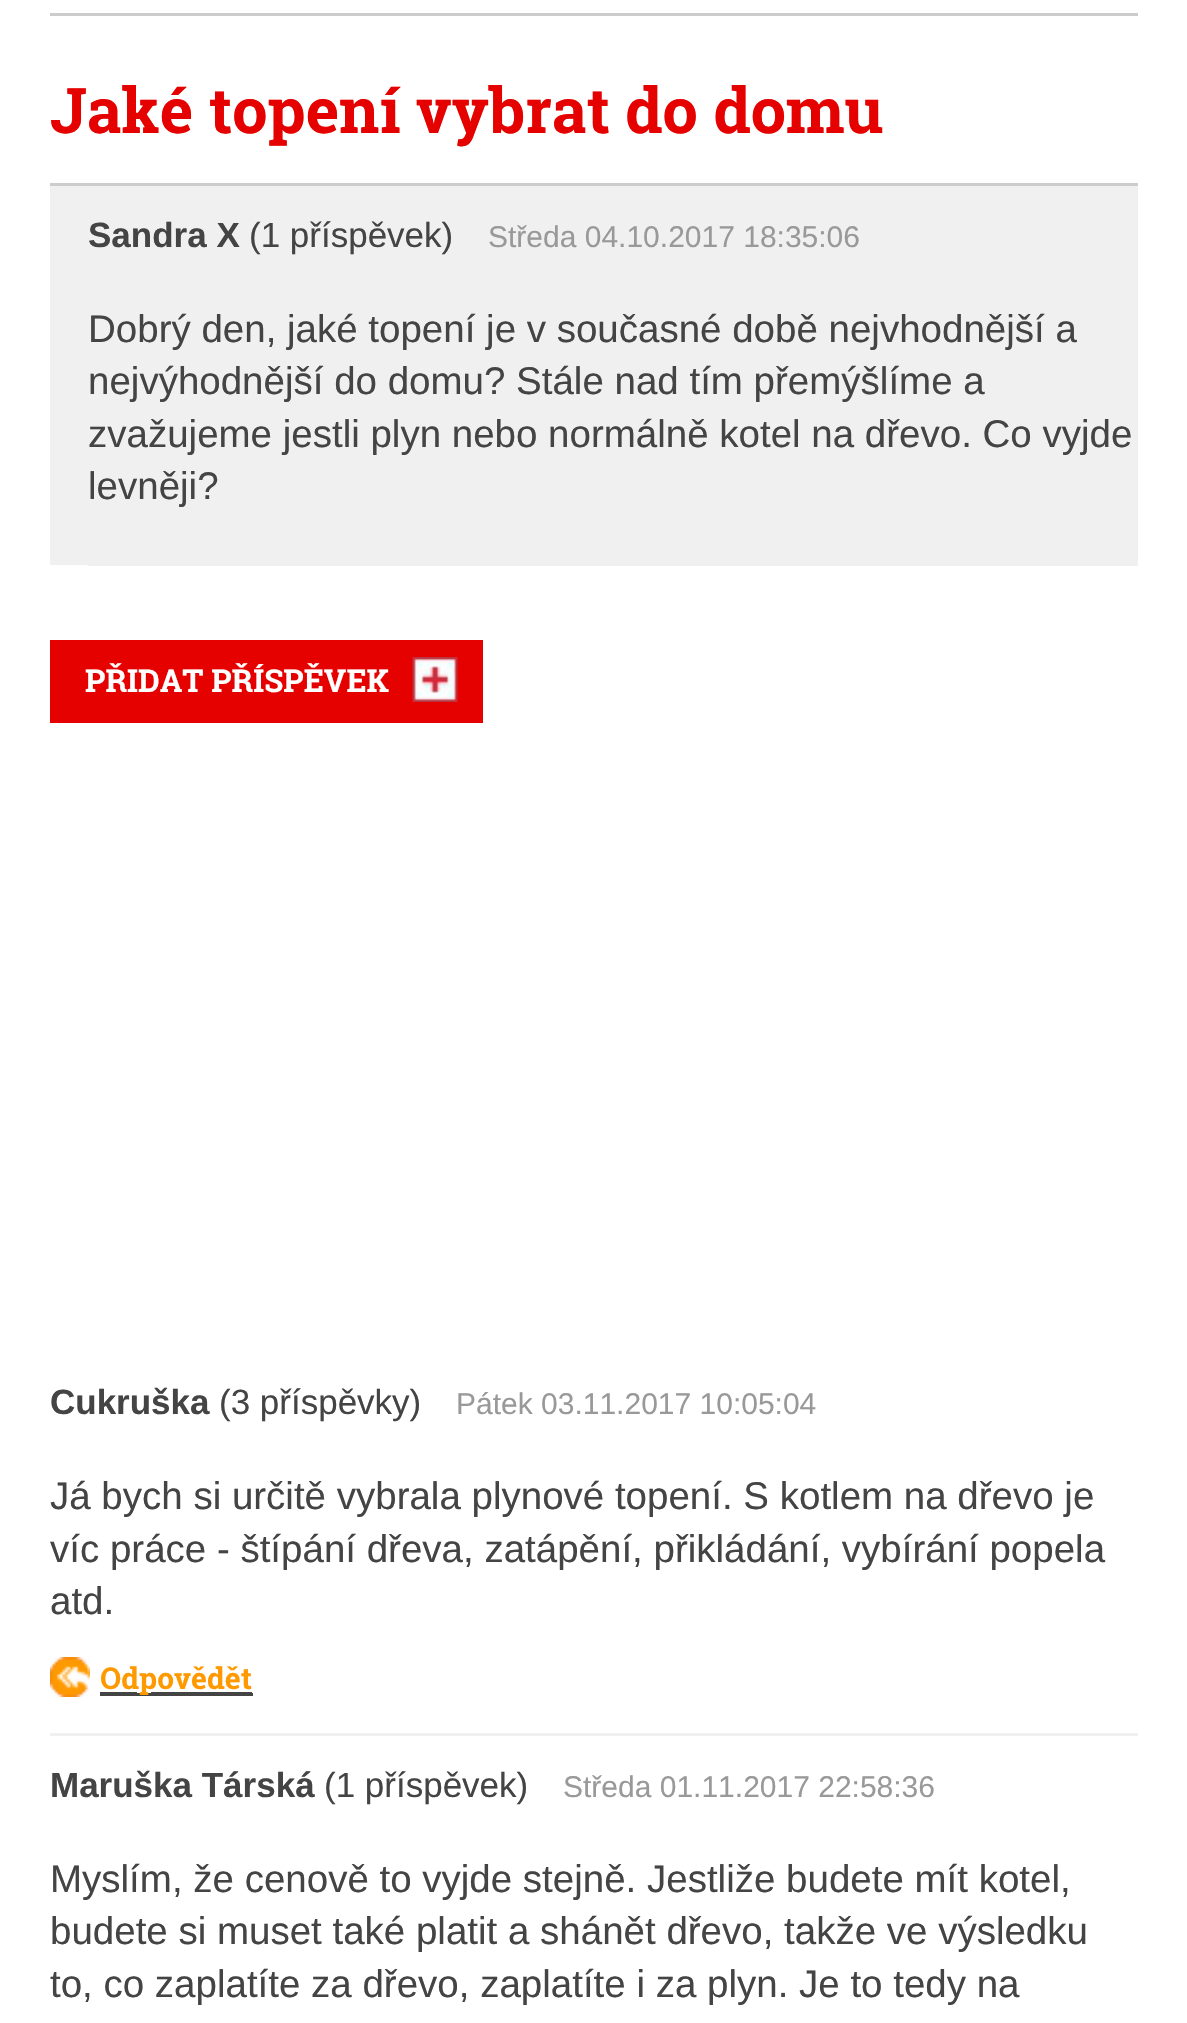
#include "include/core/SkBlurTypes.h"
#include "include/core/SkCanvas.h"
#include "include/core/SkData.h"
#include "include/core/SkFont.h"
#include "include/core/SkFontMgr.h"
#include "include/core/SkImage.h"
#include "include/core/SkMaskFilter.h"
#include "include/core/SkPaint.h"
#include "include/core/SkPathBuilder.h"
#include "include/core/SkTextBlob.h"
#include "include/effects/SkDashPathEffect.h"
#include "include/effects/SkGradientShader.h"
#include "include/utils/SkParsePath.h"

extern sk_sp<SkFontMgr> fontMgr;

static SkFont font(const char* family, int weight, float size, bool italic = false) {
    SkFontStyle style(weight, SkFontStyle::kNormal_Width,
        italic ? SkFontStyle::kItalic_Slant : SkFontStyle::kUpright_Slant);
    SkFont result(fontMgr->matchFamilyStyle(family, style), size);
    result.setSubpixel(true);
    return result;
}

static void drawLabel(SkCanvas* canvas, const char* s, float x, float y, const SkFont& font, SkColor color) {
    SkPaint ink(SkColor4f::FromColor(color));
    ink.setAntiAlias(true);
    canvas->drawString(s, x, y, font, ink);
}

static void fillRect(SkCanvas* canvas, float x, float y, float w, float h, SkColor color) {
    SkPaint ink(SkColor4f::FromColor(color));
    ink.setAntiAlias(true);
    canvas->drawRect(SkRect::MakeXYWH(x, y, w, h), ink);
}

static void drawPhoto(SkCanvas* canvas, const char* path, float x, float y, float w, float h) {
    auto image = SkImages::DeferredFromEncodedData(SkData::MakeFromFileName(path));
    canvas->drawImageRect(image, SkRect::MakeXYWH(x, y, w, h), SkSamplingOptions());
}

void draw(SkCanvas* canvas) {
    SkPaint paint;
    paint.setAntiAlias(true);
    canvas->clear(0xFFFFFFFF);
    fillRect(canvas, 50, 13, 1088, 3, 0xFFCCCCCC);
    SkFont font1 = font("Roboto Slab", 700, 63);
    drawLabel(canvas, "Jaké topení vybrat do domu", 50, 133, font1, 0xFFE50100);
    fillRect(canvas, 50, 186, 1088, 379, 0xFFF0F0F0);
    fillRect(canvas, 50, 183, 1088, 3, 0xFFCCCCCC);
    fillRect(canvas, 88, 565, 1050, 1, 0xFFF0F0F0);
    SkFont font2 = font("Liberation Sans", 700, 35);
    drawLabel(canvas, "Sandra X", 88, 247, font2, 0xFF444444);
    SkFont font3 = font("Liberation Sans", 400, 35);
    drawLabel(canvas, "(1 příspěvek)", 249, 247, font3, 0xFF444444);
    SkFont font4 = font("Liberation Sans", 400, 30);
    drawLabel(canvas, "Středa 04.10.2017 18:35:06", 488, 247, font4, 0xFF999999);
    SkFont font5 = font("Liberation Sans", 400, 38.5f);
    drawLabel(canvas, "Dobrý den, jaké topení je v současné době nejvhodnější a", 88, 342, font5, 0xFF444444);
    drawLabel(canvas, "nejvýhodnější do domu? Stále nad tím přemýšlíme a", 88, 394, font5, 0xFF444444);
    drawLabel(canvas, "zvažujeme jestli plyn nebo normálně kotel na dřevo. Co vyjde", 88, 447, font5, 0xFF444444);
    drawLabel(canvas, "levněji?", 88, 499, font5, 0xFF444444);
    fillRect(canvas, 50, 640, 433, 83, 0xFFE50100);
    drawPhoto(canvas, "assets/img1.png", 412, 657, 46, 45);
    SkFont font6 = font("Roboto Slab", 700, 31.5f);
    drawLabel(canvas, "PŘIDAT PŘÍSPĚVEK", 85, 692, font6, 0xFFFFFFFF);
    fillRect(canvas, 50, 1733, 1088, 3, 0xFFF0F0F0);
    drawLabel(canvas, "Cukruška", 50, 1414, font2, 0xFF444444);
    drawLabel(canvas, "(3 příspěvky)", 219, 1414, font3, 0xFF444444);
    drawLabel(canvas, "Pátek 03.11.2017 10:05:04", 456, 1414, font4, 0xFF999999);
    drawLabel(canvas, "Já bych si určitě vybrala plynové topení. S kotlem na dřevo je", 50, 1509, font5, 0xFF444444);
    drawLabel(canvas, "víc práce - štípání dřeva, zatápění, přikládání, vybírání popela", 50, 1562, font5, 0xFF444444);
    drawLabel(canvas, "atd.", 50, 1614, font5, 0xFF444444);
    drawPhoto(canvas, "assets/img2.png", 50, 1657, 202, 40);
    fillRect(canvas, 100, 1693, 153, 3, 0xFF444444);
    SkFont font7 = font("Roboto Slab", 700, 30);
    drawLabel(canvas, "Odpovědět", 100, 1689, font7, 0xFFFF9900);
    drawLabel(canvas, "Maruška Társká", 50, 1797, font2, 0xFF444444);
    drawLabel(canvas, "(1 příspěvek)", 324, 1797, font3, 0xFF444444);
    drawLabel(canvas, "Středa 01.11.2017 22:58:36", 563, 1797, font4, 0xFF999999);
    drawLabel(canvas, "Myslím, že cenově to vyjde stejně. Jestliže budete mít kotel,", 50, 1892, font5, 0xFF444444);
    drawLabel(canvas, "budete si muset také platit a shánět dřevo, takže ve výsledku", 50, 1944, font5, 0xFF444444);
    drawLabel(canvas, "to, co zaplatíte za dřevo, zaplatíte i za plyn. Je to tedy na", 50, 1997, font5, 0xFF444444);
}
